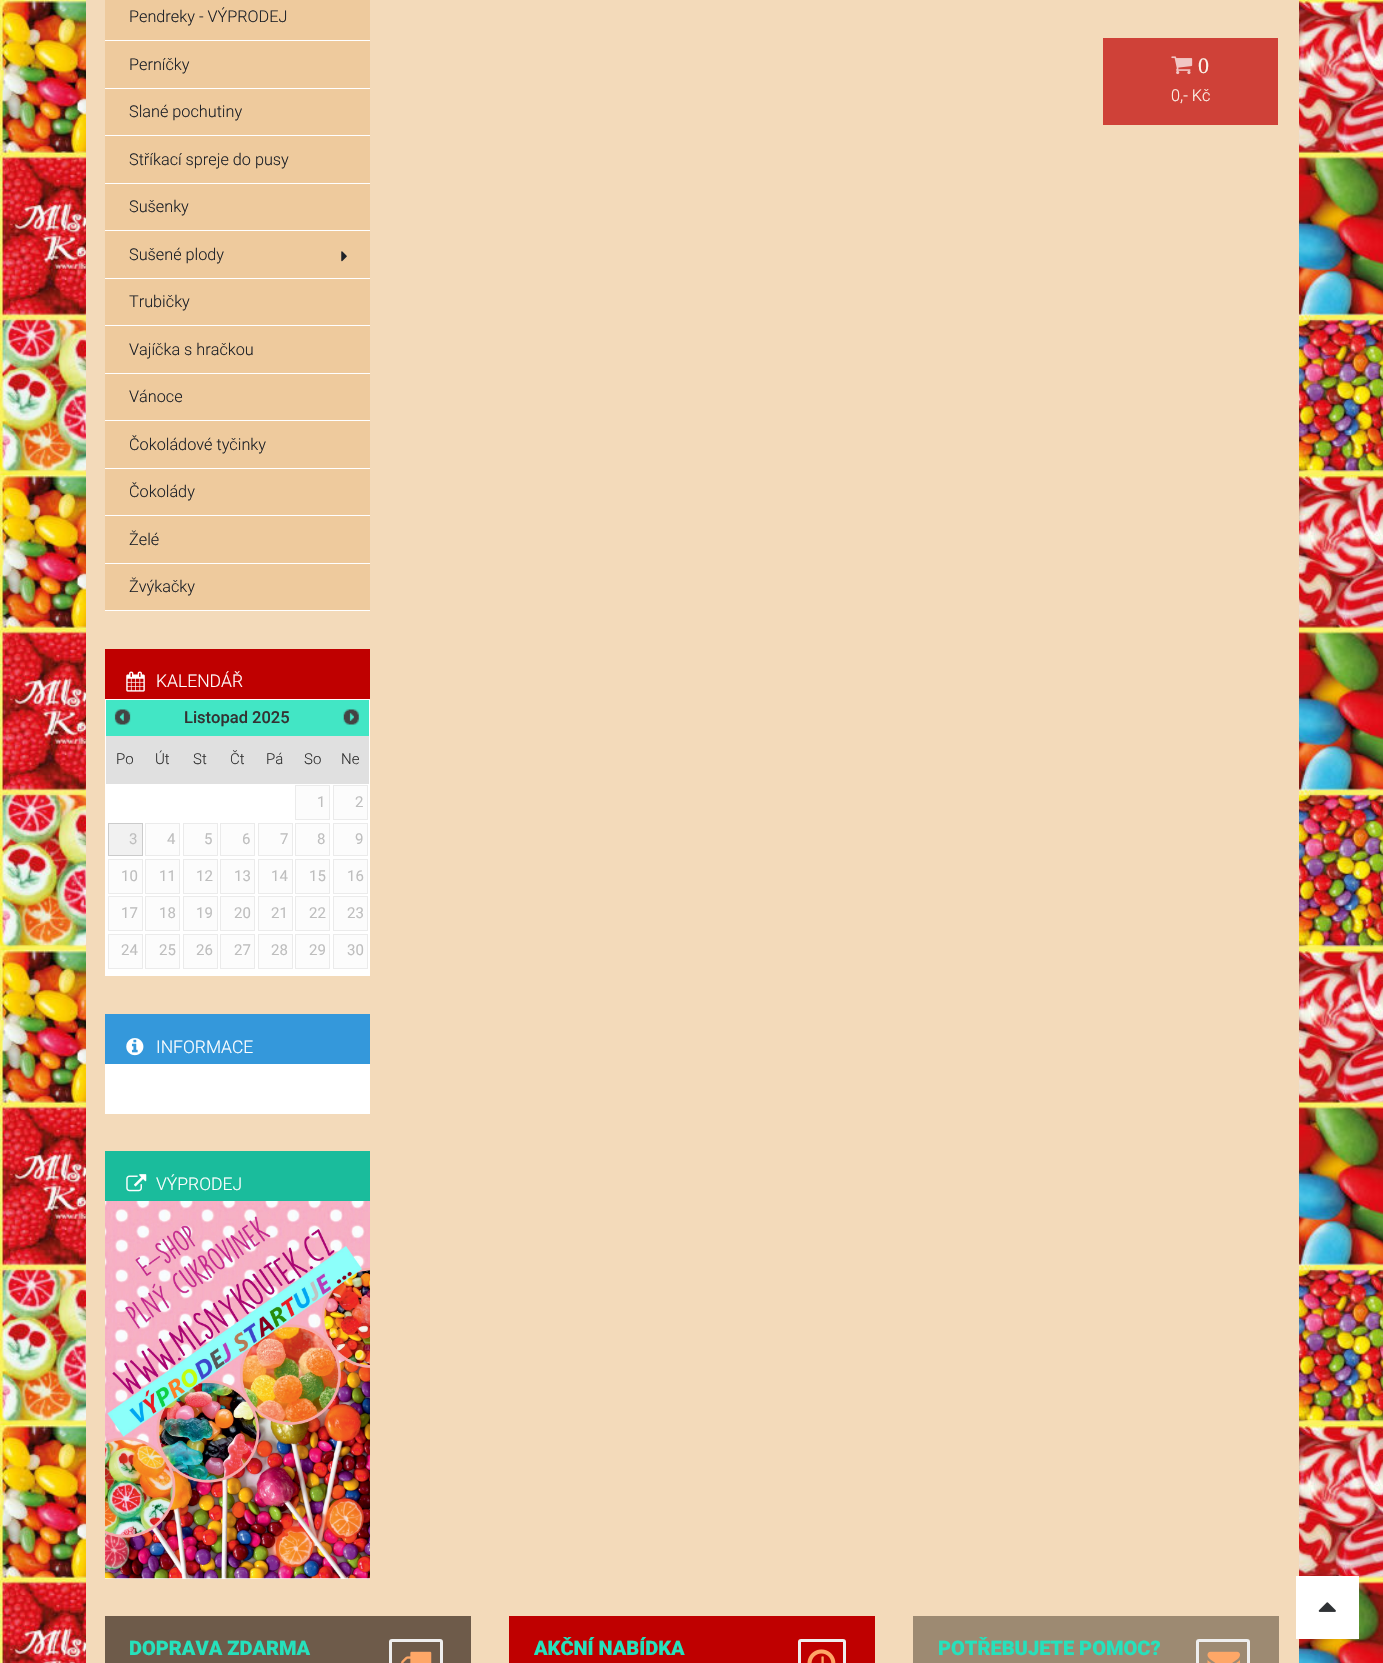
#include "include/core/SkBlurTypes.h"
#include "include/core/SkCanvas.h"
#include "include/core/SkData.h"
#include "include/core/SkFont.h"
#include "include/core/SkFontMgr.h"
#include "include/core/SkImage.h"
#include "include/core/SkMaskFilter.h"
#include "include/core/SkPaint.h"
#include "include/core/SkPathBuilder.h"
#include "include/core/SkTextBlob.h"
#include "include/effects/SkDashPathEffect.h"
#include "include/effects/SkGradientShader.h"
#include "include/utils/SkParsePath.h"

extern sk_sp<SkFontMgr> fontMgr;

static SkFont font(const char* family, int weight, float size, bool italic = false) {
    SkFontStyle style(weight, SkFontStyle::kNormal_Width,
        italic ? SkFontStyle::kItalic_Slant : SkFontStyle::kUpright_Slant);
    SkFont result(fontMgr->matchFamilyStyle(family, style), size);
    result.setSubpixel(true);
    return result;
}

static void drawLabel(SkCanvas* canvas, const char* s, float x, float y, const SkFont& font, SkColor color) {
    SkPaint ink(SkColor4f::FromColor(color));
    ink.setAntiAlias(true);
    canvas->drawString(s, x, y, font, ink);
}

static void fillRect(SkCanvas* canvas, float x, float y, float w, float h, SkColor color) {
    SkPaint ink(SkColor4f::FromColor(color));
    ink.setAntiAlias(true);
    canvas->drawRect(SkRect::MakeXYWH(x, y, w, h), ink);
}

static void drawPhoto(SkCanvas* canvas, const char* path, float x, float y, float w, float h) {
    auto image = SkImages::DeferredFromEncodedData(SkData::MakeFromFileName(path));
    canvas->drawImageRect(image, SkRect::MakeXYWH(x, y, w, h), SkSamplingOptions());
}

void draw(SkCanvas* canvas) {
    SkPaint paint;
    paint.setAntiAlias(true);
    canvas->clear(0xFFFFFFFF);
    drawPhoto(canvas, "assets/img1.png", 0, 0, 1383, 1663);
    fillRect(canvas, 86, 0, 1213, 1663, 0xFFF3DABA);
    fillRect(canvas, 105, 0, 265, 40, 0xFFEECA9D);
    fillRect(canvas, 105, 40, 265, 1, 0xFFFFFFFF);
    SkFont font1 = font("Roboto", 300, 16.25f);
    drawLabel(canvas, "Pendreky - VÝPRODEJ", 129, 22, font1, 0xFF1F2228);
    fillRect(canvas, 105, 41, 265, 47, 0xFFEECA9D);
    fillRect(canvas, 105, 88, 265, 1, 0xFFFFFFFF);
    drawLabel(canvas, "Perníčky", 129, 70, font1, 0xFF1F2228);
    fillRect(canvas, 105, 89, 265, 46, 0xFFEECA9D);
    fillRect(canvas, 105, 135, 265, 1, 0xFFFFFFFF);
    drawLabel(canvas, "Slané pochutiny", 129, 117, font1, 0xFF1F2228);
    fillRect(canvas, 105, 136, 265, 47, 0xFFEECA9D);
    fillRect(canvas, 105, 183, 265, 1, 0xFFFFFFFF);
    drawLabel(canvas, "Stříkací spreje do pusy", 129, 165, font1, 0xFF1F2228);
    fillRect(canvas, 105, 184, 265, 46, 0xFFEECA9D);
    fillRect(canvas, 105, 230, 265, 1, 0xFFFFFFFF);
    drawLabel(canvas, "Sušenky", 129, 212, font1, 0xFF1F2228);
    fillRect(canvas, 105, 231, 265, 47, 0xFFEECA9D);
    fillRect(canvas, 105, 278, 265, 1, 0xFFFFFFFF);
    drawLabel(canvas, "Sušené plody", 129, 260, font1, 0xFF1F2228);
    drawPhoto(canvas, "assets/img2.png", 341, 251, 6, 11);
    fillRect(canvas, 105, 279, 265, 46, 0xFFEECA9D);
    fillRect(canvas, 105, 325, 265, 1, 0xFFFFFFFF);
    drawLabel(canvas, "Trubičky", 129, 307, font1, 0xFF1F2228);
    fillRect(canvas, 105, 326, 265, 47, 0xFFEECA9D);
    fillRect(canvas, 105, 373, 265, 1, 0xFFFFFFFF);
    drawLabel(canvas, "Vajíčka s hračkou", 129, 355, font1, 0xFF1F2228);
    fillRect(canvas, 105, 374, 265, 46, 0xFFEECA9D);
    fillRect(canvas, 105, 420, 265, 1, 0xFFFFFFFF);
    drawLabel(canvas, "Vánoce", 129, 402, font1, 0xFF1F2228);
    fillRect(canvas, 105, 421, 265, 47, 0xFFEECA9D);
    fillRect(canvas, 105, 468, 265, 1, 0xFFFFFFFF);
    drawLabel(canvas, "Čokoládové tyčinky", 129, 450, font1, 0xFF1F2228);
    fillRect(canvas, 105, 469, 265, 46, 0xFFEECA9D);
    fillRect(canvas, 105, 515, 265, 1, 0xFFFFFFFF);
    drawLabel(canvas, "Čokolády", 129, 497, font1, 0xFF1F2228);
    fillRect(canvas, 105, 516, 265, 47, 0xFFEECA9D);
    fillRect(canvas, 105, 563, 265, 1, 0xFFFFFFFF);
    drawLabel(canvas, "Želé", 129, 545, font1, 0xFF1F2228);
    fillRect(canvas, 105, 564, 265, 46, 0xFFEECA9D);
    fillRect(canvas, 105, 610, 265, 1, 0xFFFFFFFF);
    drawLabel(canvas, "Žvýkačky", 129, 592, font1, 0xFF1F2228);
    fillRect(canvas, 105, 649, 265, 50, 0xFFBF0000);
    drawPhoto(canvas, "assets/img3.png", 126, 671, 19, 21);
    SkFont font2 = font("Roboto", 300, 17.5f);
    drawLabel(canvas, "KALENDÁŘ", 156, 687, font2, 0xFFFFFFFF);
    fillRect(canvas, 105, 699, 265, 277, 0xFFFFFFFF);
    fillRect(canvas, 106, 700, 263, 36, 0xFF42E6C5);
    drawPhoto(canvas, "assets/img4.png", 114, 709, 17, 16);
    SkFont font3 = font("Roboto", 500, 16.5f);
    drawLabel(canvas, "Listopad 2025", 184, 723, font3, 0xFF333333);
    drawPhoto(canvas, "assets/img5.png", 343, 709, 16, 16);
    fillRect(canvas, 106, 736, 263, 48, 0xFFE0E0E0);
    SkFont font4 = font("Roboto", 300, 15);
    drawLabel(canvas, "Po", 116, 764, font4, 0xFF333333);
    drawLabel(canvas, "Út", 155, 764, font4, 0xFF333333);
    drawLabel(canvas, "St", 193, 764, font4, 0xFF333333);
    drawLabel(canvas, "Čt", 230, 764, font4, 0xFF333333);
    drawLabel(canvas, "Pá", 266, 764, font4, 0xFF333333);
    drawLabel(canvas, "So", 304, 764, font4, 0xFF333333);
    drawLabel(canvas, "Ne", 341, 764, font4, 0xFF333333);
    paint.setColor(0xFFFCFCFC);
    canvas->drawRect(SkRect::MakeXYWH(295.5f, 785.5f, 34, 34), paint);
    paint.setStroke(true);
    paint.setStrokeWidth(1);
    paint.setColor(0xFFEBEBEB);
    canvas->drawRect(SkRect::MakeXYWH(295.5f, 785.5f, 34, 34), paint);
    SkFont font5 = font("Roboto", 400, 15);
    drawLabel(canvas, "1", 317, 807, font5, 0xFFBEBEBE);
    paint.setStroke(false);
    paint.setColor(0xFFFCFCFC);
    canvas->drawRect(SkRect::MakeXYWH(333.5f, 785.5f, 34, 34), paint);
    paint.setStroke(true);
    paint.setColor(0xFFEBEBEB);
    canvas->drawRect(SkRect::MakeXYWH(333.5f, 785.5f, 34, 34), paint);
    drawLabel(canvas, "2", 355, 807, font5, 0xFFBEBEBE);
    paint.setStroke(false);
    paint.setColor(0xFFF1F1F1);
    canvas->drawRect(SkRect::MakeXYWH(108.5f, 823.5f, 34, 32), paint);
    paint.setStroke(true);
    paint.setColor(0xFFCBCBCB);
    canvas->drawRect(SkRect::MakeXYWH(108.5f, 823.5f, 34, 32), paint);
    drawLabel(canvas, "3", 129, 844, font5, 0xFFBEBEBE);
    paint.setStroke(false);
    paint.setColor(0xFFFCFCFC);
    canvas->drawRect(SkRect::MakeXYWH(145.5f, 823.5f, 34, 32), paint);
    paint.setStroke(true);
    paint.setColor(0xFFEBEBEB);
    canvas->drawRect(SkRect::MakeXYWH(145.5f, 823.5f, 34, 32), paint);
    drawLabel(canvas, "4", 167, 844, font5, 0xFFBEBEBE);
    paint.setStroke(false);
    paint.setColor(0xFFFCFCFC);
    canvas->drawRect(SkRect::MakeXYWH(183.5f, 823.5f, 34, 32), paint);
    paint.setStroke(true);
    paint.setColor(0xFFEBEBEB);
    canvas->drawRect(SkRect::MakeXYWH(183.5f, 823.5f, 34, 32), paint);
    drawLabel(canvas, "5", 204, 844, font5, 0xFFBEBEBE);
    paint.setStroke(false);
    paint.setColor(0xFFFCFCFC);
    canvas->drawRect(SkRect::MakeXYWH(220.5f, 823.5f, 34, 32), paint);
    paint.setStroke(true);
    paint.setColor(0xFFEBEBEB);
    canvas->drawRect(SkRect::MakeXYWH(220.5f, 823.5f, 34, 32), paint);
    drawLabel(canvas, "6", 242, 844, font5, 0xFFBEBEBE);
    paint.setStroke(false);
    paint.setColor(0xFFFCFCFC);
    canvas->drawRect(SkRect::MakeXYWH(258.5f, 823.5f, 34, 32), paint);
    paint.setStroke(true);
    paint.setColor(0xFFEBEBEB);
    canvas->drawRect(SkRect::MakeXYWH(258.5f, 823.5f, 34, 32), paint);
    drawLabel(canvas, "7", 280, 844, font5, 0xFFBEBEBE);
    paint.setStroke(false);
    paint.setColor(0xFFFCFCFC);
    canvas->drawRect(SkRect::MakeXYWH(295.5f, 823.5f, 34, 32), paint);
    paint.setStroke(true);
    paint.setColor(0xFFEBEBEB);
    canvas->drawRect(SkRect::MakeXYWH(295.5f, 823.5f, 34, 32), paint);
    drawLabel(canvas, "8", 317, 844, font5, 0xFFBEBEBE);
    paint.setStroke(false);
    paint.setColor(0xFFFCFCFC);
    canvas->drawRect(SkRect::MakeXYWH(333.5f, 823.5f, 34, 32), paint);
    paint.setStroke(true);
    paint.setColor(0xFFEBEBEB);
    canvas->drawRect(SkRect::MakeXYWH(333.5f, 823.5f, 34, 32), paint);
    drawLabel(canvas, "9", 355, 844, font5, 0xFFBEBEBE);
    paint.setStroke(false);
    paint.setColor(0xFFFCFCFC);
    canvas->drawRect(SkRect::MakeXYWH(108.5f, 859.5f, 34, 34), paint);
    paint.setStroke(true);
    paint.setColor(0xFFEBEBEB);
    canvas->drawRect(SkRect::MakeXYWH(108.5f, 859.5f, 34, 34), paint);
    drawLabel(canvas, "10", 121, 881, font5, 0xFFBEBEBE);
    paint.setStroke(false);
    paint.setColor(0xFFFCFCFC);
    canvas->drawRect(SkRect::MakeXYWH(145.5f, 859.5f, 34, 34), paint);
    paint.setStroke(true);
    paint.setColor(0xFFEBEBEB);
    canvas->drawRect(SkRect::MakeXYWH(145.5f, 859.5f, 34, 34), paint);
    drawLabel(canvas, "11", 159, 881, font5, 0xFFBEBEBE);
    paint.setStroke(false);
    paint.setColor(0xFFFCFCFC);
    canvas->drawRect(SkRect::MakeXYWH(183.5f, 859.5f, 34, 34), paint);
    paint.setStroke(true);
    paint.setColor(0xFFEBEBEB);
    canvas->drawRect(SkRect::MakeXYWH(183.5f, 859.5f, 34, 34), paint);
    drawLabel(canvas, "12", 196, 881, font5, 0xFFBEBEBE);
    paint.setStroke(false);
    paint.setColor(0xFFFCFCFC);
    canvas->drawRect(SkRect::MakeXYWH(220.5f, 859.5f, 34, 34), paint);
    paint.setStroke(true);
    paint.setColor(0xFFEBEBEB);
    canvas->drawRect(SkRect::MakeXYWH(220.5f, 859.5f, 34, 34), paint);
    drawLabel(canvas, "13", 234, 881, font5, 0xFFBEBEBE);
    paint.setStroke(false);
    paint.setColor(0xFFFCFCFC);
    canvas->drawRect(SkRect::MakeXYWH(258.5f, 859.5f, 34, 34), paint);
    paint.setStroke(true);
    paint.setColor(0xFFEBEBEB);
    canvas->drawRect(SkRect::MakeXYWH(258.5f, 859.5f, 34, 34), paint);
    drawLabel(canvas, "14", 271, 881, font5, 0xFFBEBEBE);
    paint.setStroke(false);
    paint.setColor(0xFFFCFCFC);
    canvas->drawRect(SkRect::MakeXYWH(295.5f, 859.5f, 34, 34), paint);
    paint.setStroke(true);
    paint.setColor(0xFFEBEBEB);
    canvas->drawRect(SkRect::MakeXYWH(295.5f, 859.5f, 34, 34), paint);
    drawLabel(canvas, "15", 309, 881, font5, 0xFFBEBEBE);
    paint.setStroke(false);
    paint.setColor(0xFFFCFCFC);
    canvas->drawRect(SkRect::MakeXYWH(333.5f, 859.5f, 34, 34), paint);
    paint.setStroke(true);
    paint.setColor(0xFFEBEBEB);
    canvas->drawRect(SkRect::MakeXYWH(333.5f, 859.5f, 34, 34), paint);
    drawLabel(canvas, "16", 347, 881, font5, 0xFFBEBEBE);
    paint.setStroke(false);
    paint.setColor(0xFFFCFCFC);
    canvas->drawRect(SkRect::MakeXYWH(108.5f, 896.5f, 34, 34), paint);
    paint.setStroke(true);
    paint.setColor(0xFFEBEBEB);
    canvas->drawRect(SkRect::MakeXYWH(108.5f, 896.5f, 34, 34), paint);
    drawLabel(canvas, "17", 121, 918, font5, 0xFFBEBEBE);
    paint.setStroke(false);
    paint.setColor(0xFFFCFCFC);
    canvas->drawRect(SkRect::MakeXYWH(145.5f, 896.5f, 34, 34), paint);
    paint.setStroke(true);
    paint.setColor(0xFFEBEBEB);
    canvas->drawRect(SkRect::MakeXYWH(145.5f, 896.5f, 34, 34), paint);
    drawLabel(canvas, "18", 159, 918, font5, 0xFFBEBEBE);
    paint.setStroke(false);
    paint.setColor(0xFFFCFCFC);
    canvas->drawRect(SkRect::MakeXYWH(183.5f, 896.5f, 34, 34), paint);
    paint.setStroke(true);
    paint.setColor(0xFFEBEBEB);
    canvas->drawRect(SkRect::MakeXYWH(183.5f, 896.5f, 34, 34), paint);
    drawLabel(canvas, "19", 196, 918, font5, 0xFFBEBEBE);
    paint.setStroke(false);
    paint.setColor(0xFFFCFCFC);
    canvas->drawRect(SkRect::MakeXYWH(220.5f, 896.5f, 34, 34), paint);
    paint.setStroke(true);
    paint.setColor(0xFFEBEBEB);
    canvas->drawRect(SkRect::MakeXYWH(220.5f, 896.5f, 34, 34), paint);
    drawLabel(canvas, "20", 234, 918, font5, 0xFFBEBEBE);
    paint.setStroke(false);
    paint.setColor(0xFFFCFCFC);
    canvas->drawRect(SkRect::MakeXYWH(258.5f, 896.5f, 34, 34), paint);
    paint.setStroke(true);
    paint.setColor(0xFFEBEBEB);
    canvas->drawRect(SkRect::MakeXYWH(258.5f, 896.5f, 34, 34), paint);
    drawLabel(canvas, "21", 271, 918, font5, 0xFFBEBEBE);
    paint.setStroke(false);
    paint.setColor(0xFFFCFCFC);
    canvas->drawRect(SkRect::MakeXYWH(295.5f, 896.5f, 34, 34), paint);
    paint.setStroke(true);
    paint.setColor(0xFFEBEBEB);
    canvas->drawRect(SkRect::MakeXYWH(295.5f, 896.5f, 34, 34), paint);
    drawLabel(canvas, "22", 309, 918, font5, 0xFFBEBEBE);
    paint.setStroke(false);
    paint.setColor(0xFFFCFCFC);
    canvas->drawRect(SkRect::MakeXYWH(333.5f, 896.5f, 34, 34), paint);
    paint.setStroke(true);
    paint.setColor(0xFFEBEBEB);
    canvas->drawRect(SkRect::MakeXYWH(333.5f, 896.5f, 34, 34), paint);
    drawLabel(canvas, "23", 347, 918, font5, 0xFFBEBEBE);
    paint.setStroke(false);
    paint.setColor(0xFFFCFCFC);
    canvas->drawRect(SkRect::MakeXYWH(108.5f, 934.5f, 34, 34), paint);
    paint.setStroke(true);
    paint.setColor(0xFFEBEBEB);
    canvas->drawRect(SkRect::MakeXYWH(108.5f, 934.5f, 34, 34), paint);
    drawLabel(canvas, "24", 121, 955, font5, 0xFFBEBEBE);
    paint.setStroke(false);
    paint.setColor(0xFFFCFCFC);
    canvas->drawRect(SkRect::MakeXYWH(145.5f, 934.5f, 34, 34), paint);
    paint.setStroke(true);
    paint.setColor(0xFFEBEBEB);
    canvas->drawRect(SkRect::MakeXYWH(145.5f, 934.5f, 34, 34), paint);
    drawLabel(canvas, "25", 159, 955, font5, 0xFFBEBEBE);
    paint.setStroke(false);
    paint.setColor(0xFFFCFCFC);
    canvas->drawRect(SkRect::MakeXYWH(183.5f, 934.5f, 34, 34), paint);
    paint.setStroke(true);
    paint.setColor(0xFFEBEBEB);
    canvas->drawRect(SkRect::MakeXYWH(183.5f, 934.5f, 34, 34), paint);
    drawLabel(canvas, "26", 196, 955, font5, 0xFFBEBEBE);
    paint.setStroke(false);
    paint.setColor(0xFFFCFCFC);
    canvas->drawRect(SkRect::MakeXYWH(220.5f, 934.5f, 34, 34), paint);
    paint.setStroke(true);
    paint.setColor(0xFFEBEBEB);
    canvas->drawRect(SkRect::MakeXYWH(220.5f, 934.5f, 34, 34), paint);
    drawLabel(canvas, "27", 234, 955, font5, 0xFFBEBEBE);
    paint.setStroke(false);
    paint.setColor(0xFFFCFCFC);
    canvas->drawRect(SkRect::MakeXYWH(258.5f, 934.5f, 34, 34), paint);
    paint.setStroke(true);
    paint.setColor(0xFFEBEBEB);
    canvas->drawRect(SkRect::MakeXYWH(258.5f, 934.5f, 34, 34), paint);
    drawLabel(canvas, "28", 271, 955, font5, 0xFFBEBEBE);
    paint.setStroke(false);
    paint.setColor(0xFFFCFCFC);
    canvas->drawRect(SkRect::MakeXYWH(295.5f, 934.5f, 34, 34), paint);
    paint.setStroke(true);
    paint.setColor(0xFFEBEBEB);
    canvas->drawRect(SkRect::MakeXYWH(295.5f, 934.5f, 34, 34), paint);
    drawLabel(canvas, "29", 309, 955, font5, 0xFFBEBEBE);
    paint.setStroke(false);
    paint.setColor(0xFFFCFCFC);
    canvas->drawRect(SkRect::MakeXYWH(333.5f, 934.5f, 34, 34), paint);
    paint.setStroke(true);
    paint.setColor(0xFFEBEBEB);
    canvas->drawRect(SkRect::MakeXYWH(333.5f, 934.5f, 34, 34), paint);
    drawLabel(canvas, "30", 347, 955, font5, 0xFFBEBEBE);
    fillRect(canvas, 105, 1014, 265, 50, 0xFF3498DB);
    drawPhoto(canvas, "assets/img6.png", 126, 1038, 18, 18);
    drawLabel(canvas, "INFORMACE", 156, 1053, font2, 0xFFFFFFFF);
    fillRect(canvas, 105, 1064, 265, 50, 0xFFFFFFFF);
    fillRect(canvas, 105, 1151, 265, 50, 0xFF1ABC9C);
    drawPhoto(canvas, "assets/img7.png", 126, 1174, 21, 18);
    drawLabel(canvas, "VÝPRODEJ", 156, 1190, font2, 0xFFFFFFFF);
    fillRect(canvas, 105, 1578, 265, 1, 0xFFFFFFFF);
    drawPhoto(canvas, "assets/img8.png", 105, 1201, 265, 378);
    fillRect(canvas, 1103, 38, 175, 87, 0xFFCF4138);
    drawPhoto(canvas, "assets/img9.png", 1171, 56, 22, 19);
    SkFont font6 = font("Liberation Serif", 400, 22);
    drawLabel(canvas, "0", 1198, 73, font6, 0xFFFBF4EA);
    drawLabel(canvas, "0,- Kč", 1171, 101, font1, 0xFFFBF4EA);
    fillRect(canvas, 1296, 1576, 63, 63, 0xFFFFFFFF);
    drawPhoto(canvas, "assets/img10.png", 1318, 1602, 18, 10);
    fillRect(canvas, 105, 1616, 366, 47, 0xFF6E5B4A);
    SkFont font7 = font("Roboto", 900, 20);
    drawLabel(canvas, "DOPRAVA ZDARMA", 129, 1655, font7, 0xFF26E1BC);
    paint.setStrokeWidth(3);
    paint.setColor(0xFFEEEEEE);
    canvas->drawRoundRect(SkRect::MakeXYWH(390.5f, 1640.5f, 51, 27), 1.5f, 1.5f, paint);
    drawPhoto(canvas, "assets/img11.png", 401, 1651, 31, 12);
    fillRect(canvas, 509, 1616, 366, 47, 0xFFBF0000);
    drawLabel(canvas, "AKČNÍ NABÍDKA", 534, 1655, font7, 0xFF26E1BC);
    canvas->drawRoundRect(SkRect::MakeXYWH(799.5f, 1640.5f, 45, 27), 1.5f, 1.5f, paint);
    drawPhoto(canvas, "assets/img12.png", 807, 1649, 29, 14);
    fillRect(canvas, 913, 1616, 366, 47, 0xFF9D8A72);
    drawLabel(canvas, "POTŘEBUJETE POMOC?", 938, 1655, font7, 0xFF26E1BC);
    canvas->drawRoundRect(SkRect::MakeXYWH(1197.5f, 1640.5f, 51, 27), 1.5f, 1.5f, paint);
    drawPhoto(canvas, "assets/img13.png", 1207, 1651, 33, 12);
}
